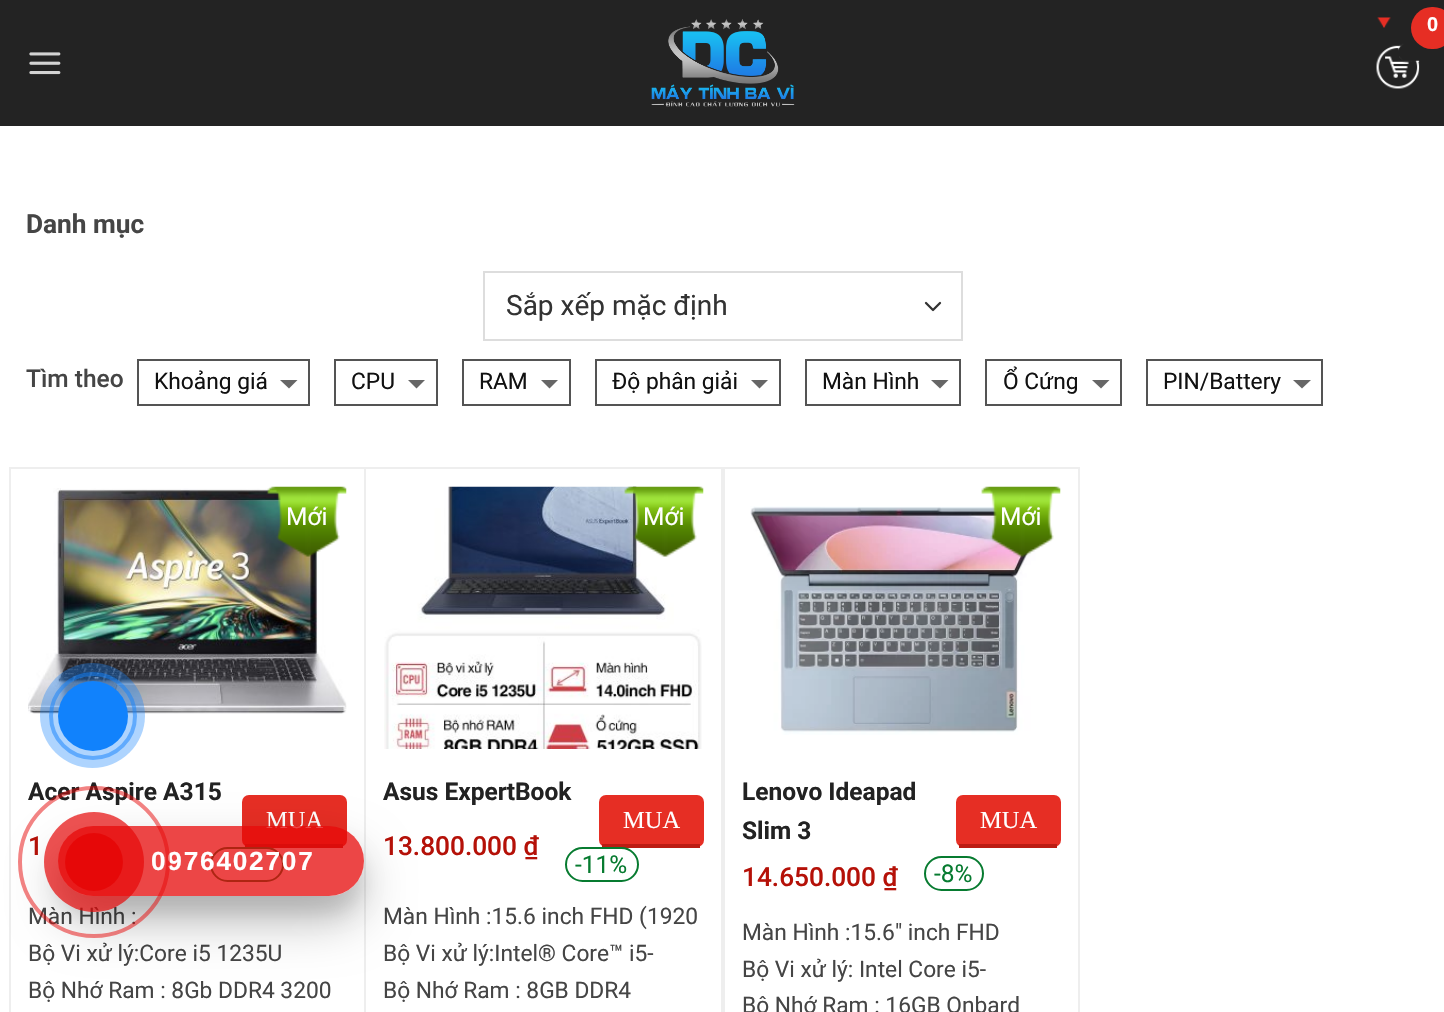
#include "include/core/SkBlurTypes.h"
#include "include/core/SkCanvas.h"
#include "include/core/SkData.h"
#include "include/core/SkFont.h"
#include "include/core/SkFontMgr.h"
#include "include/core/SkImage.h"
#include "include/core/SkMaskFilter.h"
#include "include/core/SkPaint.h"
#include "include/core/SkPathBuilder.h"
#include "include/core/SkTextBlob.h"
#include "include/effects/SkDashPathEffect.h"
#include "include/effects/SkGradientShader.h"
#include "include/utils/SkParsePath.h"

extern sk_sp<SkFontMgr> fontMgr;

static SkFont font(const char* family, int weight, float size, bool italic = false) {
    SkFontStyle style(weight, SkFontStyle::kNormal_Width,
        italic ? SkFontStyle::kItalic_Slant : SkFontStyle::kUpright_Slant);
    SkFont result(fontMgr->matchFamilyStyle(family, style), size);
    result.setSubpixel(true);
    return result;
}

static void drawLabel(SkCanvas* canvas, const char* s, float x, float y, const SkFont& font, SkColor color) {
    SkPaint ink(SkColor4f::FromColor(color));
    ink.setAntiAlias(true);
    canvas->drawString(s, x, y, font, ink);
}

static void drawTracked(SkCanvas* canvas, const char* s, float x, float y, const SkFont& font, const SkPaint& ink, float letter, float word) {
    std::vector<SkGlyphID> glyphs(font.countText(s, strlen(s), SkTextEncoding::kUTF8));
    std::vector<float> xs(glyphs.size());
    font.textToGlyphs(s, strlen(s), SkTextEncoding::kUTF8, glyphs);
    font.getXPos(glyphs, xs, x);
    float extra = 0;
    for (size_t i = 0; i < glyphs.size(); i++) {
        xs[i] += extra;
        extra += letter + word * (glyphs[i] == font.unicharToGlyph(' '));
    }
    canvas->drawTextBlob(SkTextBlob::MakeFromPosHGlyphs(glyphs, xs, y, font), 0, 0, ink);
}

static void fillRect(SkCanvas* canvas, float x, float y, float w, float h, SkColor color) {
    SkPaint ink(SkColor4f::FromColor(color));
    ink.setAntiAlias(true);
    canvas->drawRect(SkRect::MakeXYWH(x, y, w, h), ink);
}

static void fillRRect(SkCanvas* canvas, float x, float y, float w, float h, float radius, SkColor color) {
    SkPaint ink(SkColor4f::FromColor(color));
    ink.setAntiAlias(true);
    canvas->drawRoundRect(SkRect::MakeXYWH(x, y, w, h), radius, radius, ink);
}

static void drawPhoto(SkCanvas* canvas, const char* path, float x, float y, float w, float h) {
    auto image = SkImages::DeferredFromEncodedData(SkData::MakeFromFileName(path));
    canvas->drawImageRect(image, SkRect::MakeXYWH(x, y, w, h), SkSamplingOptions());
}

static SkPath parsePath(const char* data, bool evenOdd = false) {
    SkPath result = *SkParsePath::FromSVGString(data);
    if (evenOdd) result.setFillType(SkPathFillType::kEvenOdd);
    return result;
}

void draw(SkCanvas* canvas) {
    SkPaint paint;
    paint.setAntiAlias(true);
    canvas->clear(0xFFFFFFFF);
    fillRect(canvas, 0, 0, 1444, 126, 0xFF232323);
    drawPhoto(canvas, "assets/img1.png", 29, 52, 32, 23);
    drawPhoto(canvas, "assets/img2.png", 651, 19, 144, 88);
    drawPhoto(canvas, "assets/img3.png", 1376, 17, 44, 72);
    fillRRect(canvas, 1411, 7, 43, 42, 21, 0xFFE62E24);
    SkFont font1 = font("Liberation Sans", 700, 20);
    drawLabel(canvas, "0", 1427, 31, font1, 0xFFFFFFFF);
    SkFont font2 = font("Roboto", 700, 26.25f);
    drawLabel(canvas, "Danh mục", 26, 233, font2, 0xFF454545);
    paint.setStroke(true);
    paint.setStrokeWidth(2.3f);
    paint.setStrokeCap(SkPaint::kRound_Cap);
    paint.setStrokeJoin(SkPaint::kRound_Join);
    paint.setColor(0xFF333333);
    canvas->drawPath(parsePath("M926 303L933 310L940 303"), paint);
    paint.setStrokeWidth(2);
    paint.setStrokeCap(SkPaint::kButt_Cap);
    paint.setStrokeJoin(SkPaint::kMiter_Join);
    paint.setColor(0xFFDDDDDD);
    canvas->drawRect(SkRect::MakeXYWH(484, 272, 478, 68), paint);
    SkFont font3 = font("Roboto", 400, 28);
    drawLabel(canvas, "Sắp xếp mặc định", 506, 315, font3, 0xFF333333);
    SkFont font4 = font("Roboto", 500, 24.5f);
    drawLabel(canvas, "Tìm theo", 26, 387, font4, 0xFF454545);
    paint.setColor(0xFF545454);
    canvas->drawRect(SkRect::MakeXYWH(138, 360, 171, 45), paint);
    SkFont font5 = font("Roboto", 400, 22.75f);
    drawLabel(canvas, "Khoảng giá", 154, 389, font5, 0xFF111111);
    paint.setStroke(false);
    paint.setColor(0xFF666666);
    canvas->drawPath(parsePath("M280 380H297.5L289 388.5Z"), paint);
    paint.setStroke(true);
    paint.setColor(0xFF545454);
    canvas->drawRect(SkRect::MakeXYWH(335, 360, 102, 45), paint);
    drawLabel(canvas, "CPU", 351, 389, font5, 0xFF111111);
    paint.setStroke(false);
    paint.setColor(0xFF666666);
    canvas->drawPath(parsePath("M408 380H425L416.5 388.5Z"), paint);
    paint.setStroke(true);
    paint.setColor(0xFF545454);
    canvas->drawRect(SkRect::MakeXYWH(463, 360, 107, 45), paint);
    drawLabel(canvas, "RAM", 479, 389, font5, 0xFF111111);
    paint.setStroke(false);
    paint.setColor(0xFF666666);
    canvas->drawPath(parsePath("M541 380H558L549.5 388.5Z"), paint);
    paint.setStroke(true);
    paint.setColor(0xFF545454);
    canvas->drawRect(SkRect::MakeXYWH(596, 360, 184, 45), paint);
    drawLabel(canvas, "Độ phân giải", 612, 389, font5, 0xFF111111);
    paint.setStroke(false);
    paint.setColor(0xFF666666);
    canvas->drawPath(parsePath("M751 380H768L759.5 388.5Z"), paint);
    paint.setStroke(true);
    paint.setColor(0xFF545454);
    canvas->drawRect(SkRect::MakeXYWH(806, 360, 154, 45), paint);
    drawLabel(canvas, "Màn Hình", 822, 389, font5, 0xFF111111);
    paint.setStroke(false);
    paint.setColor(0xFF666666);
    canvas->drawPath(parsePath("M931 380H948.5L940 388.5Z"), paint);
    paint.setStroke(true);
    paint.setColor(0xFF545454);
    canvas->drawRect(SkRect::MakeXYWH(986, 360, 135, 45), paint);
    drawLabel(canvas, "Ổ Cứng", 1003, 389, font5, 0xFF111111);
    paint.setStroke(false);
    paint.setColor(0xFF666666);
    canvas->drawPath(parsePath("M1092 380H1109.5L1101 388.5Z"), paint);
    paint.setStroke(true);
    paint.setColor(0xFF545454);
    canvas->drawRect(SkRect::MakeXYWH(1147, 360, 175, 45), paint);
    drawLabel(canvas, "PIN/Battery", 1163, 389, font5, 0xFF111111);
    paint.setStroke(false);
    paint.setColor(0xFF666666);
    canvas->drawPath(parsePath("M1293 380H1311L1302 388.5Z"), paint);
    paint.setStroke(true);
    paint.setColor(0xFFEEEEEE);
    canvas->drawRect(SkRect::MakeXYWH(10, 468, 355, 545), paint);
    drawPhoto(canvas, "assets/img4.png", 28, 488, 319, 226);
    drawPhoto(canvas, "assets/img5.png", 267, 486, 80, 71);
    SkFont font6 = font("Roboto", 400, 24.5f);
    drawLabel(canvas, "Mới", 286, 525, font6, 0xFFFFFFFF);
    SkFont font7 = font("Roboto", 700, 24.5f);
    drawLabel(canvas, "Acer Aspire A315", 28, 800, font7, 0xFF222222);
    fillRRect(canvas, 242, 795, 105, 52, 7, 0xFFE62E24);
    fillRect(canvas, 245, 844, 98, 4, 0xFFBC1C13);
    SkFont font8 = font("Liberation Serif", 400, 24.5f);
    drawLabel(canvas, "MUA", 266, 828, font8, 0xFFFFFFFF);
    SkFont font9 = font("Roboto", 500, 26.25f);
    drawLabel(canvas, "1", 28, 855, font9, 0xFFB51108);
    paint.setColor(0xFF077B30);
    canvas->drawRoundRect(SkRect::MakeXYWH(211, 848, 72, 33), 16.5f, 16.5f, paint);
    drawLabel(canvas, "Màn Hình :", 28, 924, font5, 0xFF454545);
    drawLabel(canvas, "Bộ Vi xử lý:Core i5 1235U", 28, 961, font5, 0xFF454545);
    drawLabel(canvas, "Bộ Nhớ Ram : 8Gb DDR4 3200", 28, 998, font5, 0xFF454545);
    fillRect(canvas, 366, 467, 357, 2, 0xFFEEEEEE);
    fillRect(canvas, 721, 467, 2, 545, 0xFFEEEEEE);
    drawPhoto(canvas, "assets/img6.png", 384, 486, 318, 263);
    drawPhoto(canvas, "assets/img7.png", 624, 486, 80, 71);
    drawLabel(canvas, "Mới", 643, 525, font6, 0xFFFFFFFF);
    drawLabel(canvas, "Asus ExpertBook", 383, 800, font7, 0xFF222222);
    fillRRect(canvas, 599, 795, 105, 52, 7, 0xFFE62E24);
    fillRect(canvas, 602, 844, 98, 4, 0xFFBC1C13);
    drawLabel(canvas, "MUA", 623, 828, font8, 0xFFFFFFFF);
    drawLabel(canvas, "13.800.000 ₫", 383, 855, font9, 0xFFB51108);
    canvas->drawRoundRect(SkRect::MakeXYWH(566, 848, 72, 33), 16.5f, 16.5f, paint);
    drawLabel(canvas, "-11%", 575, 873, font6, 0xFF077B30);
    drawLabel(canvas, "Màn Hình :15.6 inch FHD (1920", 383, 924, font5, 0xFF454545);
    drawLabel(canvas, "Bộ Vi xử lý:Intel® Core™ i5-", 383, 961, font5, 0xFF454545);
    drawLabel(canvas, "Bộ Nhớ Ram : 8GB DDR4", 383, 998, font5, 0xFF454545);
    paint.setColor(0xFFEEEEEE);
    canvas->drawRect(SkRect::MakeXYWH(724, 468, 355, 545), paint);
    drawPhoto(canvas, "assets/img8.png", 750, 506, 298, 229);
    drawPhoto(canvas, "assets/img9.png", 981, 486, 80, 71);
    drawLabel(canvas, "Mới", 1000, 525, font6, 0xFFFFFFFF);
    drawLabel(canvas, "Lenovo Ideapad", 742, 800, font7, 0xFF222222);
    drawLabel(canvas, "Slim 3", 742, 839, font7, 0xFF222222);
    fillRRect(canvas, 956, 795, 105, 52, 7, 0xFFE62E24);
    fillRect(canvas, 959, 844, 98, 4, 0xFFBC1C13);
    drawLabel(canvas, "MUA", 980, 828, font8, 0xFFFFFFFF);
    drawLabel(canvas, "14.650.000 ₫", 742, 886, font9, 0xFFB51108);
    paint.setColor(0xFF077B30);
    canvas->drawRoundRect(SkRect::MakeXYWH(925, 857, 58, 33), 16.5f, 16.5f, paint);
    drawLabel(canvas, "-8%", 934, 882, font6, 0xFF077B30);
    drawLabel(canvas, "Màn Hình :15.6\" inch FHD", 742, 940, font5, 0xFF454545);
    drawLabel(canvas, "Bộ Vi xử lý: Intel Core i5-", 742, 977, font5, 0xFF454545);
    drawLabel(canvas, "Bộ Nhớ Ram : 16GB Onbard", 742, 1013, font5, 0xFF454545);
    paint.setStrokeWidth(4);
    paint.setColor(0x801182FC);
    canvas->drawCircle(93, 716, 42, paint);
    paint.setStroke(false);
    paint.setColor(0x571182FC);
    canvas->drawCircle(92.5f, 715.5f, 52.5f, paint);
    paint.setColor(0xFF1182FC);
    canvas->drawCircle(93, 716, 35, paint);
    canvas->save();
    canvas->clipPath(parsePath("M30 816H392V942H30ZM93 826H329C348.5 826 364 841.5 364 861C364 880.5 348.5 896 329 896H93C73.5 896 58 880.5 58 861C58 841.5 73.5 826 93 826Z", true), true);
    paint.setColor(0x1A000000);
    paint.setMaskFilter(SkMaskFilter::MakeBlur(kNormal_SkBlurStyle, 9));
    canvas->drawRoundRect(SkRect::MakeXYWH(58, 844, 306, 70), 35, 35, paint);
    paint.setMaskFilter(nullptr);
    canvas->restore();
    canvas->save();
    canvas->clipPath(parsePath("M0 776H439V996H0ZM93 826H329C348.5 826 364 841.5 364 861C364 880.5 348.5 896 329 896H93C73.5 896 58 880.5 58 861C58 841.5 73.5 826 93 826Z", true), true);
    paint.setColor(0x40000000);
    paint.setMaskFilter(SkMaskFilter::MakeBlur(kNormal_SkBlurStyle, 24.5f));
    canvas->drawRoundRect(SkRect::MakeXYWH(58, 851, 306, 70), 35, 35, paint);
    paint.setMaskFilter(nullptr);
    canvas->restore();
    fillRRect(canvas, 58, 826, 306, 70, 35, 0xBFE60808);
    SkFont font10 = font("Liberation Sans", 700, 26.25f);
    paint.setColor(0xFFFFFFFF);
    drawTracked(canvas, "0976402707", 151, 870, font10, paint, 1.75f, 0);
    paint.setStroke(true);
    paint.setColor(0x80E60808);
    canvas->drawCircle(94, 862, 74, paint);
    paint.setStroke(false);
    paint.setColor(0xB3E60808);
    canvas->drawCircle(94, 862, 50, paint);
    paint.setColor(0xFFE60808);
    canvas->drawCircle(94, 862, 29, paint);
}
